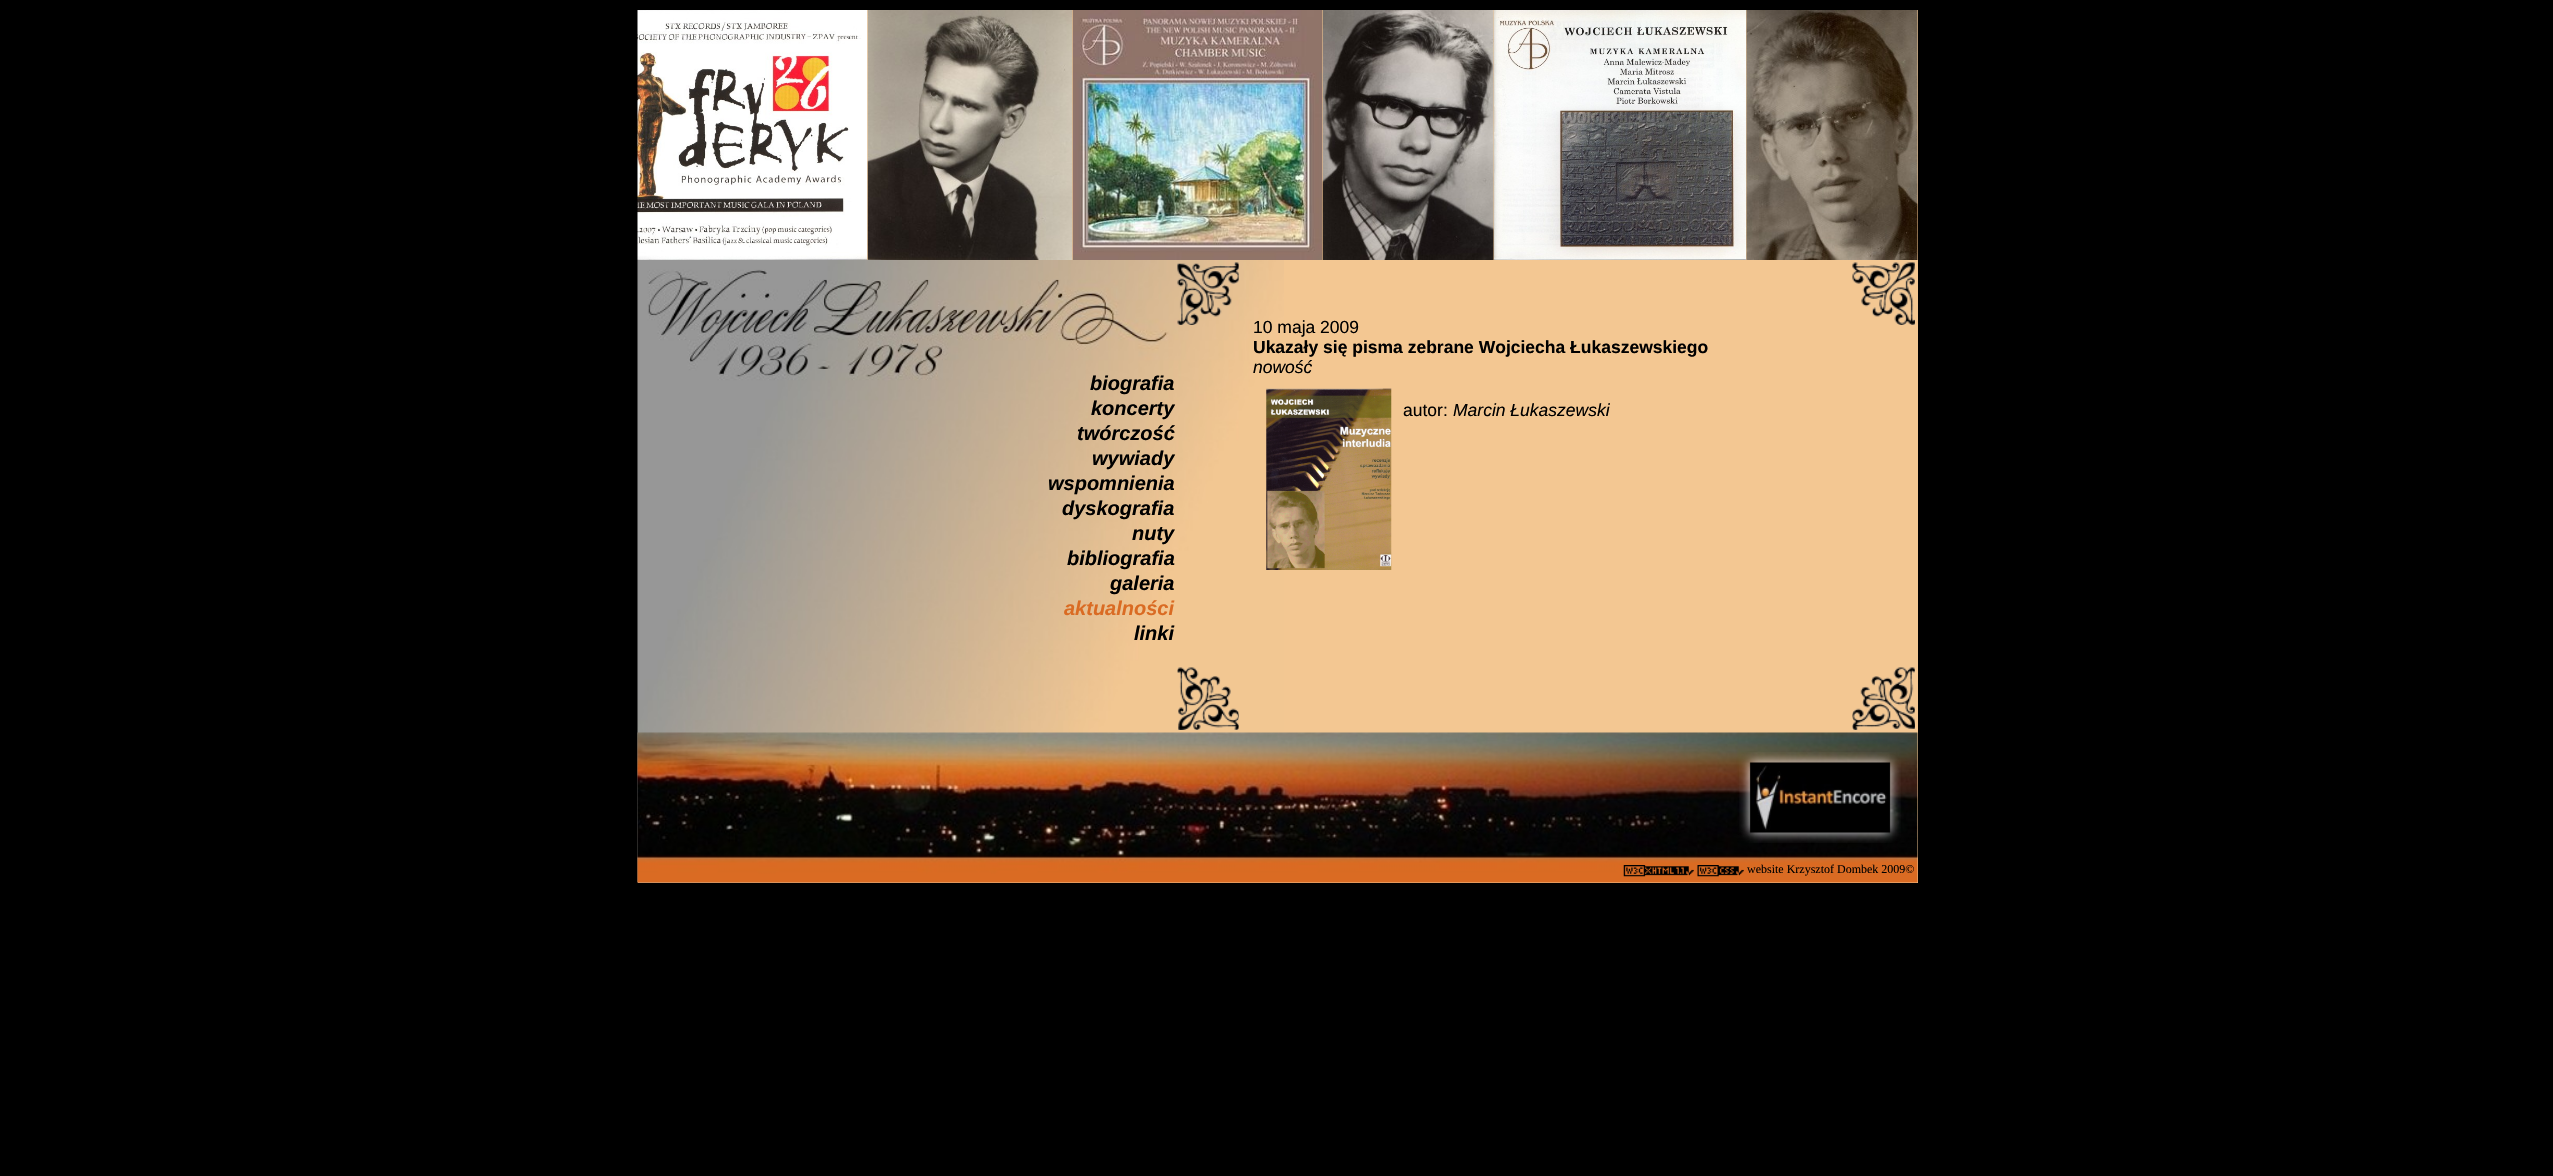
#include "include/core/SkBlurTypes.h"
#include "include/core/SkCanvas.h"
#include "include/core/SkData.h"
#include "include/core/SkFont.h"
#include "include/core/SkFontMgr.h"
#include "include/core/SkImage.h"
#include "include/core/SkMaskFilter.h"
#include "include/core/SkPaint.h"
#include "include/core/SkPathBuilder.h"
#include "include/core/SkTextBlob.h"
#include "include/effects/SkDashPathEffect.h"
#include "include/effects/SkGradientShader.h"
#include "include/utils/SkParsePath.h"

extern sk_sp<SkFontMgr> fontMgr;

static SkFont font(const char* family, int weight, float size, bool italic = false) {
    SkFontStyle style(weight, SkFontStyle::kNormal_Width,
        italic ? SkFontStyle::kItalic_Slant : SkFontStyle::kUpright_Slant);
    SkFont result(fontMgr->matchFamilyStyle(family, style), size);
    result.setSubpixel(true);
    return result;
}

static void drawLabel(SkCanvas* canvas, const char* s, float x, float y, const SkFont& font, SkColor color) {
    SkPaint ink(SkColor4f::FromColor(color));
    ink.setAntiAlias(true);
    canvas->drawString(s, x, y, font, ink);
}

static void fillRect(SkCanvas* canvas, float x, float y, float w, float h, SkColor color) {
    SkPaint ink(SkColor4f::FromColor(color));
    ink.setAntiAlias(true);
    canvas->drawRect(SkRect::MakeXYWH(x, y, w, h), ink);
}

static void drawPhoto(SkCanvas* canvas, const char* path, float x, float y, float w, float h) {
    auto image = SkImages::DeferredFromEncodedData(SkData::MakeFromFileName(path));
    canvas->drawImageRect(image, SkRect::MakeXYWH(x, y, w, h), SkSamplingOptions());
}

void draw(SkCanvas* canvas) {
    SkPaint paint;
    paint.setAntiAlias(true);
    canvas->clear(0xFF000000);
    fillRect(canvas, 638, 10, 1280, 873, 0xFFF3C792);
    drawPhoto(canvas, "assets/img1.png", 637, 10, 231, 250);
    drawPhoto(canvas, "assets/img2.png", 867, 10, 206, 250);
    drawPhoto(canvas, "assets/img3.png", 1072, 10, 251, 250);
    drawPhoto(canvas, "assets/img4.png", 1322, 10, 172, 250);
    drawPhoto(canvas, "assets/img5.png", 1493, 10, 254, 250);
    drawPhoto(canvas, "assets/img6.png", 1746, 10, 172, 250);
    drawPhoto(canvas, "assets/img7.png", 637, 260, 647, 623);
    SkFont font1 = font("Liberation Sans", 700, 20, true);
    drawLabel(canvas, "biografia", 1090, 390, font1, 0xFF000000);
    drawLabel(canvas, "koncerty", 1091, 415, font1, 0xFF000000);
    drawLabel(canvas, "twórczość", 1077, 440, font1, 0xFF000000);
    drawLabel(canvas, "wywiady", 1092, 465, font1, 0xFF000000);
    drawLabel(canvas, "wspomnienia", 1048, 490, font1, 0xFF000000);
    drawLabel(canvas, "dyskografia", 1062, 515, font1, 0xFF000000);
    drawLabel(canvas, "nuty", 1132, 540, font1, 0xFF000000);
    drawLabel(canvas, "bibliografia", 1067, 565, font1, 0xFF000000);
    drawLabel(canvas, "galeria", 1110, 590, font1, 0xFF000000);
    drawLabel(canvas, "aktualności", 1064, 615, font1, 0xFFDA6B23);
    drawLabel(canvas, "linki", 1134, 640, font1, 0xFF000000);
    drawPhoto(canvas, "assets/img8.png", 1177, 262, 62, 63);
    drawPhoto(canvas, "assets/img9.png", 1852, 262, 63, 63);
    SkFont font2 = font("Liberation Sans", 400, 17.5f);
    drawLabel(canvas, "10 maja 2009", 1253, 333, font2, 0xFF000000);
    SkFont font3 = font("Liberation Sans", 700, 17.5f);
    drawLabel(canvas, "Ukazały się pisma zebrane Wojciecha Łukaszewskiego", 1253, 353, font3, 0xFF000000);
    SkFont font4 = font("Liberation Sans", 400, 17.5f, true);
    drawLabel(canvas, "nowość", 1253, 373, font4, 0xFF000000);
    drawPhoto(canvas, "assets/img10.png", 1266, 388, 126, 182);
    drawLabel(canvas, "autor:", 1403, 416, font2, 0xFF000000);
    drawLabel(canvas, "Marcin Łukaszewski", 1453, 416, font4, 0xFF000000);
    drawPhoto(canvas, "assets/img11.png", 1177, 667, 62, 63);
    drawPhoto(canvas, "assets/img12.png", 1852, 667, 63, 63);
    drawPhoto(canvas, "assets/img13.png", 637, 732, 1281, 151);
    drawPhoto(canvas, "assets/img14.png", 1739, 752, 162, 91);
    drawPhoto(canvas, "assets/img15.png", 1623, 865, 71, 12);
    drawPhoto(canvas, "assets/img16.png", 1697, 865, 47, 12);
    SkFont font5 = font("Liberation Serif", 400, 12);
    drawLabel(canvas, "website Krzysztof Dombek 2009©", 1747, 873, font5, 0xFF000000);
}
